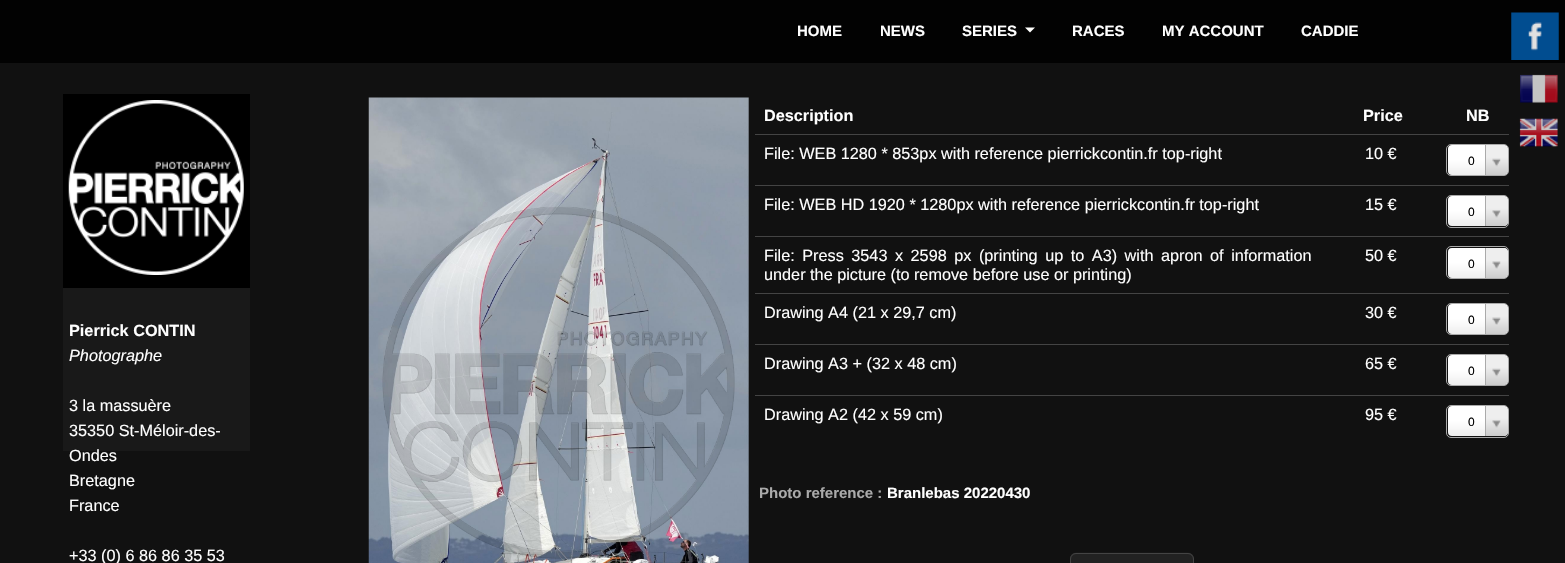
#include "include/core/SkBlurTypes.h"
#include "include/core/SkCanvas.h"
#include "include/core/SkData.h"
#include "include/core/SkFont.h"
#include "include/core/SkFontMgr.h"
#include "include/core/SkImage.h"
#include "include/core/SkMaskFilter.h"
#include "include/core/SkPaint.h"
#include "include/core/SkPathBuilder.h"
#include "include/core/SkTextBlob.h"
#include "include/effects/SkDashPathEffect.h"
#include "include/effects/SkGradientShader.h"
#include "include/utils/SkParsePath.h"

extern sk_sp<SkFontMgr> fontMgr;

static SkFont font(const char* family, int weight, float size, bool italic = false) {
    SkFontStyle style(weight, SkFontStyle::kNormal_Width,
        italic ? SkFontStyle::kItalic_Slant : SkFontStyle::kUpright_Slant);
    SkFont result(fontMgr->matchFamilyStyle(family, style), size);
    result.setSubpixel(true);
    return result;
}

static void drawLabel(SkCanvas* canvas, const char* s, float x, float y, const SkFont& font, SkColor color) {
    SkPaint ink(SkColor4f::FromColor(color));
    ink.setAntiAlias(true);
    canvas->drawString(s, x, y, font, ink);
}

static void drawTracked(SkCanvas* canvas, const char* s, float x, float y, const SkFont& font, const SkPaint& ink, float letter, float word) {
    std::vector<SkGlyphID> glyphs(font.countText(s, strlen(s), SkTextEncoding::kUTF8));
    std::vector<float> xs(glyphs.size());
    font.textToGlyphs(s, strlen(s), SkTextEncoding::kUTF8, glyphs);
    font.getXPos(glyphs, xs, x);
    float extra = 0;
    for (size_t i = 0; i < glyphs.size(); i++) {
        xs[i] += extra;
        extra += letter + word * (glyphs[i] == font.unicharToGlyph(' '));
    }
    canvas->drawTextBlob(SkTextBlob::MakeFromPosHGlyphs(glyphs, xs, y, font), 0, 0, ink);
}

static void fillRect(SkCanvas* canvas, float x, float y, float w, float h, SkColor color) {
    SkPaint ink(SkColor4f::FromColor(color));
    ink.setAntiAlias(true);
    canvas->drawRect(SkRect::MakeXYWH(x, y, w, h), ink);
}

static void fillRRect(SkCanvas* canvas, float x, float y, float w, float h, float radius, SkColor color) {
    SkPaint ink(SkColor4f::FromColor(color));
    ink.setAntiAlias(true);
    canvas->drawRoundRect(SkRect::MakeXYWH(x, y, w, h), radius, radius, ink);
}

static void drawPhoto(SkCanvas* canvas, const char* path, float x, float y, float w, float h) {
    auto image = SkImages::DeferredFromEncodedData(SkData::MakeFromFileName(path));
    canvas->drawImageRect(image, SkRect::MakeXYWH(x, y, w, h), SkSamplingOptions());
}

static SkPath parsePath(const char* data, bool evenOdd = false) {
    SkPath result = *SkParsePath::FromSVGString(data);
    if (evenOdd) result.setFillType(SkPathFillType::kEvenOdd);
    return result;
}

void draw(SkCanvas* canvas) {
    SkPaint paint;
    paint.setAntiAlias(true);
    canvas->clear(0xFF111111);
    fillRect(canvas, 63, 94, 187, 194, 0xFF000000);
    drawPhoto(canvas, "assets/img1.png", 68, 100, 176, 175);
    fillRect(canvas, 63, 288, 187, 163, 0xFF191919);
    SkFont font1 = font("Liberation Sans", 700, 16.25f);
    drawLabel(canvas, "Pierrick CONTIN", 69, 336, font1, 0xFFFEFEFE);
    SkFont font2 = font("Liberation Sans", 400, 16.25f, true);
    drawLabel(canvas, "Photographe", 69, 361, font2, 0xFFFEFEFE);
    SkFont font3 = font("Liberation Sans", 400, 16.25f);
    drawLabel(canvas, "3 la massuère", 69, 411, font3, 0xFFFEFEFE);
    drawLabel(canvas, "35350 St-Méloir-des-", 69, 436, font3, 0xFFFEFEFE);
    drawLabel(canvas, "Ondes", 69, 461, font3, 0xFFFEFEFE);
    drawLabel(canvas, "Bretagne", 69, 486, font3, 0xFFFEFEFE);
    drawLabel(canvas, "France", 69, 511, font3, 0xFFFEFEFE);
    drawLabel(canvas, "+33 (0) 6 86 86 35 53", 69, 561, font3, 0xFFFEFEFE);
    fillRect(canvas, 0, 0, 1565, 63, 0xFF020202);
    SkFont font4 = font("Liberation Sans", 700, 15);
    drawLabel(canvas, "HOME", 797, 36, font4, 0xFFFEFEFE);
    drawLabel(canvas, "NEWS", 880, 36, font4, 0xFFFEFEFE);
    drawLabel(canvas, "SERIES", 962, 36, font4, 0xFFFEFEFE);
    paint.setColor(0xFFFFFFFD);
    canvas->drawPath(parsePath("M1025 27.5H1035L1030 32.5Z"), paint);
    drawLabel(canvas, "RACES", 1072, 36, font4, 0xFFFEFEFE);
    drawLabel(canvas, "MY ACCOUNT", 1162, 36, font4, 0xFFFEFEFE);
    drawLabel(canvas, "CADDIE", 1301, 36, font4, 0xFFFEFEFE);
    drawPhoto(canvas, "assets/img2.png", 1511, 12, 48, 48);
    drawPhoto(canvas, "assets/img3.png", 1520, 74, 38, 29);
    drawPhoto(canvas, "assets/img4.png", 368, 97, 381, 466);
    drawLabel(canvas, "Description", 764, 121, font1, 0xFFFEFEFE);
    drawLabel(canvas, "Price", 1363, 121, font1, 0xFFFEFEFE);
    drawLabel(canvas, "NB", 1466, 121, font1, 0xFFFEFEFE);
    fillRect(canvas, 755, 134, 754, 1, 0xFF444444);
    drawLabel(canvas, "File: WEB 1280 * 853px with reference pierrickcontin.fr top-right", 764, 159, font3, 0xFFFEFEFE);
    drawLabel(canvas, "10 €", 1365, 159, font3, 0xFFFEFEFE);
    {
        const SkColor colors[] = {0xFFEEEEEE, 0xFFFFFFFF};
        const float stops[] = {0, 0.5f};
        const SkPoint ends[] = {{1448, 175}, {1448, 145}};
        paint.setShader(SkGradientShader::MakeLinear(ends, colors, stops, 2, SkTileMode::kClamp));
        paint.setAlpha(255);
    }
    canvas->drawRoundRect(SkRect::MakeXYWH(1448, 145, 60, 30), 4, 4, paint);
    paint.setStroke(true);
    paint.setStrokeWidth(1);
    paint.setShader(nullptr);
    paint.setColor(0xFFAAAAAA);
    canvas->drawRoundRect(SkRect::MakeXYWH(1446.5f, 144.5f, 62, 31), 4.5f, 4.5f, paint);
    SkFont font5 = font("Liberation Sans", 400, 12);
    drawLabel(canvas, "0", 1468, 165, font5, 0xFF000000);
    canvas->save();
    canvas->clipPath(parsePath("M1452 145H1504C1506 145 1508 147 1508 149V171C1508 173 1506 175 1504 175H1452C1450 175 1448 173 1448 171V149C1448 147 1450 145 1452 145Z"), true);
    paint.setStroke(false);
    {
        const SkColor colors[] = {0xFFCCCCCC, 0xFFEEEEEE};
        const float stops[] = {0, 0.6f};
        const SkPoint ends[] = {{1486, 175}, {1486, 145}};
        paint.setShader(SkGradientShader::MakeLinear(ends, colors, stops, 2, SkTileMode::kClamp));
        paint.setAlpha(255);
    }
    canvas->drawPath(parsePath("M1485 145H1503C1506 145 1508 147 1508 150V170C1508 173 1506 175 1503 175H1485Z"), paint);
    canvas->restore();
    fillRect(canvas, 1485, 145, 1, 30, 0xFFAAAAAA);
    drawPhoto(canvas, "assets/img5.png", 1492, 158, 9, 9);
    fillRect(canvas, 755, 185, 754, 1, 0xFF444444);
    drawLabel(canvas, "File: WEB HD 1920 * 1280px with reference pierrickcontin.fr top-right", 764, 210, font3, 0xFFFEFEFE);
    drawLabel(canvas, "15 €", 1365, 210, font3, 0xFFFEFEFE);
    {
        const SkColor colors[] = {0xFFEEEEEE, 0xFFFFFFFF};
        const float stops[] = {0, 0.5f};
        const SkPoint ends[] = {{1448, 226}, {1448, 196}};
        paint.setShader(SkGradientShader::MakeLinear(ends, colors, stops, 2, SkTileMode::kClamp));
        paint.setAlpha(255);
    }
    canvas->drawRoundRect(SkRect::MakeXYWH(1448, 196, 60, 30), 4, 4, paint);
    paint.setStroke(true);
    paint.setShader(nullptr);
    paint.setColor(0xFFAAAAAA);
    canvas->drawRoundRect(SkRect::MakeXYWH(1446.5f, 195.5f, 62, 32), 4.5f, 4.5f, paint);
    drawLabel(canvas, "0", 1468, 216, font5, 0xFF000000);
    canvas->save();
    canvas->clipPath(parsePath("M1452 196H1504C1506 196 1508 198 1508 200V222C1508 224 1506 226 1504 226H1452C1450 226 1448 224 1448 222V200C1448 198 1450 196 1452 196Z"), true);
    paint.setStroke(false);
    {
        const SkColor colors[] = {0xFFCCCCCC, 0xFFEEEEEE};
        const float stops[] = {0, 0.6f};
        const SkPoint ends[] = {{1486, 226}, {1486, 196}};
        paint.setShader(SkGradientShader::MakeLinear(ends, colors, stops, 2, SkTileMode::kClamp));
        paint.setAlpha(255);
    }
    canvas->drawPath(parsePath("M1485 196H1503C1506 196 1508 198 1508 201V221C1508 224 1506 226 1503 226H1485Z"), paint);
    canvas->restore();
    fillRect(canvas, 1485, 196, 1, 30, 0xFFAAAAAA);
    drawPhoto(canvas, "assets/img6.png", 1492, 210, 9, 8);
    fillRect(canvas, 755, 236, 754, 1, 0xFF444444);
    paint.setShader(nullptr);
    paint.setColor(0xFFFEFEFE);
    drawTracked(canvas, "File: Press 3543 x 2598 px (printing up to A3) with apron of information", 764, 261, font3, paint, 0, 3);
    drawLabel(canvas, "under the picture (to remove before use or printing)", 764, 280, font3, 0xFFFEFEFE);
    drawLabel(canvas, "50 €", 1365, 261, font3, 0xFFFEFEFE);
    {
        const SkColor colors[] = {0xFFEEEEEE, 0xFFFFFFFF};
        const float stops[] = {0, 0.5f};
        const SkPoint ends[] = {{1448, 278}, {1448, 248}};
        paint.setShader(SkGradientShader::MakeLinear(ends, colors, stops, 2, SkTileMode::kClamp));
        paint.setAlpha(255);
    }
    canvas->drawRoundRect(SkRect::MakeXYWH(1448, 248, 60, 30), 4, 4, paint);
    paint.setStroke(true);
    paint.setShader(nullptr);
    paint.setColor(0xFFAAAAAA);
    canvas->drawRoundRect(SkRect::MakeXYWH(1446.5f, 246.5f, 62, 32), 4.5f, 4.5f, paint);
    drawLabel(canvas, "0", 1468, 268, font5, 0xFF000000);
    canvas->save();
    canvas->clipPath(parsePath("M1452 248H1504C1506 248 1508 250 1508 252V274C1508 276 1506 278 1504 278H1452C1450 278 1448 276 1448 274V252C1448 250 1450 248 1452 248Z"), true);
    paint.setStroke(false);
    {
        const SkColor colors[] = {0xFFCCCCCC, 0xFFEEEEEE};
        const float stops[] = {0, 0.6f};
        const SkPoint ends[] = {{1486, 278}, {1486, 248}};
        paint.setShader(SkGradientShader::MakeLinear(ends, colors, stops, 2, SkTileMode::kClamp));
        paint.setAlpha(255);
    }
    canvas->drawPath(parsePath("M1485 248H1503C1506 248 1508 250 1508 253V273C1508 276 1506 278 1503 278H1485Z"), paint);
    canvas->restore();
    fillRect(canvas, 1485, 248, 1, 30, 0xFFAAAAAA);
    drawPhoto(canvas, "assets/img7.png", 1492, 261, 9, 8);
    fillRect(canvas, 755, 293, 754, 1, 0xFF444444);
    drawLabel(canvas, "Drawing A4 (21 x 29,7 cm)", 764, 318, font3, 0xFFFEFEFE);
    drawLabel(canvas, "30 €", 1365, 318, font3, 0xFFFEFEFE);
    {
        const SkColor colors[] = {0xFFEEEEEE, 0xFFFFFFFF};
        const float stops[] = {0, 0.5f};
        const SkPoint ends[] = {{1448, 334}, {1448, 304}};
        paint.setShader(SkGradientShader::MakeLinear(ends, colors, stops, 2, SkTileMode::kClamp));
        paint.setAlpha(255);
    }
    canvas->drawRoundRect(SkRect::MakeXYWH(1448, 304, 60, 30), 4, 4, paint);
    paint.setStroke(true);
    paint.setShader(nullptr);
    paint.setColor(0xFFAAAAAA);
    canvas->drawRoundRect(SkRect::MakeXYWH(1446.5f, 303.5f, 62, 31), 4.5f, 4.5f, paint);
    drawLabel(canvas, "0", 1468, 324, font5, 0xFF000000);
    canvas->save();
    canvas->clipPath(parsePath("M1452 304H1504C1506 304 1508 306 1508 308V330C1508 332 1506 334 1504 334H1452C1450 334 1448 332 1448 330V308C1448 306 1450 304 1452 304Z"), true);
    paint.setStroke(false);
    {
        const SkColor colors[] = {0xFFCCCCCC, 0xFFEEEEEE};
        const float stops[] = {0, 0.6f};
        const SkPoint ends[] = {{1486, 334}, {1486, 304}};
        paint.setShader(SkGradientShader::MakeLinear(ends, colors, stops, 2, SkTileMode::kClamp));
        paint.setAlpha(255);
    }
    canvas->drawPath(parsePath("M1485 304H1503C1506 304 1508 306 1508 309V329C1508 332 1506 334 1503 334H1485Z"), paint);
    canvas->restore();
    fillRect(canvas, 1485, 304, 1, 30, 0xFFAAAAAA);
    drawPhoto(canvas, "assets/img8.png", 1492, 317, 9, 8);
    fillRect(canvas, 755, 344, 754, 1, 0xFF444444);
    drawLabel(canvas, "Drawing A3 + (32 x 48 cm)", 764, 369, font3, 0xFFFEFEFE);
    drawLabel(canvas, "65 €", 1365, 369, font3, 0xFFFEFEFE);
    {
        const SkColor colors[] = {0xFFEEEEEE, 0xFFFFFFFF};
        const float stops[] = {0, 0.5f};
        const SkPoint ends[] = {{1448, 385}, {1448, 355}};
        paint.setShader(SkGradientShader::MakeLinear(ends, colors, stops, 2, SkTileMode::kClamp));
        paint.setAlpha(255);
    }
    canvas->drawRoundRect(SkRect::MakeXYWH(1448, 355, 60, 30), 4, 4, paint);
    paint.setStroke(true);
    paint.setShader(nullptr);
    paint.setColor(0xFFAAAAAA);
    canvas->drawRoundRect(SkRect::MakeXYWH(1446.5f, 354.5f, 62, 31), 4.5f, 4.5f, paint);
    drawLabel(canvas, "0", 1468, 375, font5, 0xFF000000);
    canvas->save();
    canvas->clipPath(parsePath("M1452 355H1504C1506 355 1508 357 1508 359V381C1508 383 1506 385 1504 385H1452C1450 385 1448 383 1448 381V359C1448 357 1450 355 1452 355Z"), true);
    paint.setStroke(false);
    {
        const SkColor colors[] = {0xFFCCCCCC, 0xFFEEEEEE};
        const float stops[] = {0, 0.6f};
        const SkPoint ends[] = {{1486, 385}, {1486, 355}};
        paint.setShader(SkGradientShader::MakeLinear(ends, colors, stops, 2, SkTileMode::kClamp));
        paint.setAlpha(255);
    }
    canvas->drawPath(parsePath("M1485 355H1503C1506 355 1508 357 1508 360V380C1508 383 1506 385 1503 385H1485Z"), paint);
    canvas->restore();
    fillRect(canvas, 1485, 355, 1, 30, 0xFFAAAAAA);
    drawPhoto(canvas, "assets/img5.png", 1492, 368, 9, 9);
    fillRect(canvas, 755, 395, 754, 1, 0xFF444444);
    drawLabel(canvas, "Drawing A2 (42 x 59 cm)", 764, 420, font3, 0xFFFEFEFE);
    drawLabel(canvas, "95 €", 1365, 420, font3, 0xFFFEFEFE);
    {
        const SkColor colors[] = {0xFFEEEEEE, 0xFFFFFFFF};
        const float stops[] = {0, 0.5f};
        const SkPoint ends[] = {{1448, 436}, {1448, 406}};
        paint.setShader(SkGradientShader::MakeLinear(ends, colors, stops, 2, SkTileMode::kClamp));
        paint.setAlpha(255);
    }
    canvas->drawRoundRect(SkRect::MakeXYWH(1448, 406, 60, 30), 4, 4, paint);
    paint.setStroke(true);
    paint.setShader(nullptr);
    paint.setColor(0xFFAAAAAA);
    canvas->drawRoundRect(SkRect::MakeXYWH(1446.5f, 405.5f, 62, 32), 4.5f, 4.5f, paint);
    drawLabel(canvas, "0", 1468, 426, font5, 0xFF000000);
    canvas->save();
    canvas->clipPath(parsePath("M1452 406H1504C1506 406 1508 408 1508 410V432C1508 434 1506 436 1504 436H1452C1450 436 1448 434 1448 432V410C1448 408 1450 406 1452 406Z"), true);
    paint.setStroke(false);
    {
        const SkColor colors[] = {0xFFCCCCCC, 0xFFEEEEEE};
        const float stops[] = {0, 0.6f};
        const SkPoint ends[] = {{1486, 436}, {1486, 406}};
        paint.setShader(SkGradientShader::MakeLinear(ends, colors, stops, 2, SkTileMode::kClamp));
        paint.setAlpha(255);
    }
    canvas->drawPath(parsePath("M1485 406H1503C1506 406 1508 408 1508 411V431C1508 434 1506 436 1503 436H1485Z"), paint);
    canvas->restore();
    fillRect(canvas, 1485, 406, 1, 30, 0xFFAAAAAA);
    drawPhoto(canvas, "assets/img6.png", 1492, 420, 9, 8);
    drawLabel(canvas, "Photo reference :", 759, 498, font4, 0xFFAAAAAA);
    drawLabel(canvas, "Branlebas 20220430", 887, 498, font4, 0xFFFEFEFE);
    fillRRect(canvas, 1070, 553, 124, 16, 6, 0xFF222222);
    drawPhoto(canvas, "assets/img9.png", 1070, 552, 123, 5);
    paint.setStroke(true);
    paint.setShader(nullptr);
    paint.setColor(0xFF444444);
    canvas->drawRoundRect(SkRect::MakeXYWH(1070.5f, 553.5f, 123, 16), 5.5f, 5.5f, paint);
    drawPhoto(canvas, "assets/img10.png", 1519, 118, 39, 29);
}
